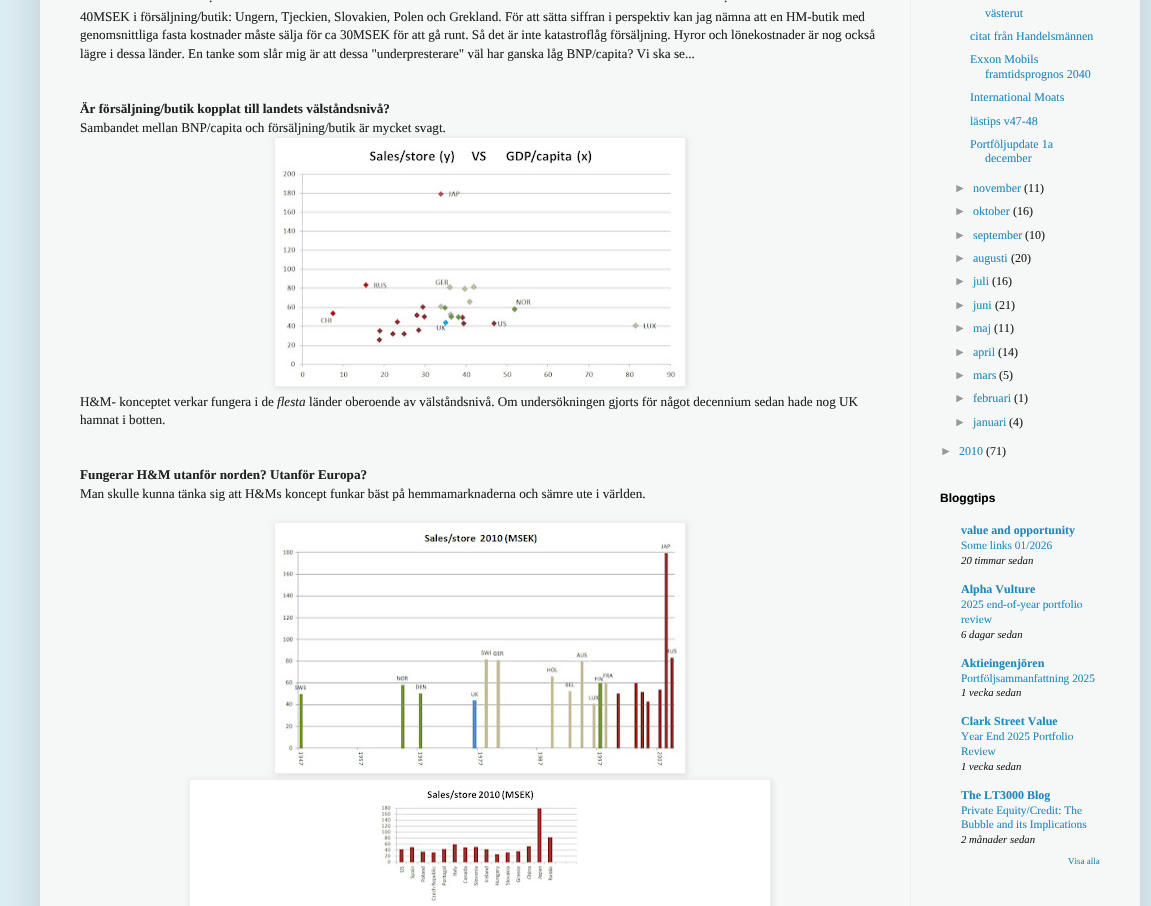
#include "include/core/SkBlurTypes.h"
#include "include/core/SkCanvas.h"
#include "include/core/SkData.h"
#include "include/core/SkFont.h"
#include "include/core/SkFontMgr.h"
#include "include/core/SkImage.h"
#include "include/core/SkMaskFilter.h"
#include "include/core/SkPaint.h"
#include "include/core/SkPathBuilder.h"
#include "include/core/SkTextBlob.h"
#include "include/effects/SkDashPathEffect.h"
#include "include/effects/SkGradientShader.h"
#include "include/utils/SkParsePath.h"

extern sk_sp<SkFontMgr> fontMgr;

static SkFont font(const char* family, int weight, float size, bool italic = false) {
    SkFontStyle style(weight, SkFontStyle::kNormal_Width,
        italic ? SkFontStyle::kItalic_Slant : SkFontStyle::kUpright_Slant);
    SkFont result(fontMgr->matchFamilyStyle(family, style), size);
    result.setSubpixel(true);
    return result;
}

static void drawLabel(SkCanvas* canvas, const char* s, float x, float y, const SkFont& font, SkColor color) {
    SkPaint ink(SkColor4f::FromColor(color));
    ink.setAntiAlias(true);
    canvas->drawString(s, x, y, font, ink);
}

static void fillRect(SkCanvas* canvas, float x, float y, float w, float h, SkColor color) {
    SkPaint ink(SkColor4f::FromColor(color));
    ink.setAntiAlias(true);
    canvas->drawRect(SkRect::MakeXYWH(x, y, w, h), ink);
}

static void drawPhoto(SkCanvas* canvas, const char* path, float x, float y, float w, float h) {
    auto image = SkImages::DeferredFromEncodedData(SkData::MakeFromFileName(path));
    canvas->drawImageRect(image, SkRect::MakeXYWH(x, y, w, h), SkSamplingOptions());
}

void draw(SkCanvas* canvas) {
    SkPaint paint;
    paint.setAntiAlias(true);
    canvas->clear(0xFFDDEEF4);
    paint.setColor(0x26000000);
    paint.setMaskFilter(SkMaskFilter::MakeBlur(kNormal_SkBlurStyle, 20));
    canvas->drawRect(SkRect::MakeXYWH(40, -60, 1100, 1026), paint);
    paint.setMaskFilter(nullptr);
    fillRect(canvas, 40, 0, 1100, 906, 0xFFF6F8F8);
    SkFont font1 = font("Liberation Serif", 400, 13.2f);
    drawLabel(canvas, ".", 209, 2, font1, 0xFF222222);
    drawLabel(canvas, ".", 724, 2, font1, 0xFF222222);
    drawLabel(canvas, "40MSEK i försäljning/butik: Ungern, Tjeckien, Slovakien, Polen och Grekland. För att sätta siffran i perspektiv kan jag nämna att en HM-butik med", 80, 21, font1, 0xFF222222);
    drawLabel(canvas, "genomsnittliga fasta kostnader måste sälja för ca 30MSEK för att gå runt. Så det är inte katastroflåg försäljning. Hyror och lönekostnader är nog också", 80, 39, font1, 0xFF222222);
    drawLabel(canvas, "lägre i dessa länder. En tanke som slår mig är att dessa \"underpresterare\" väl har ganska låg BNP/capita? Vi ska se...", 80, 58, font1, 0xFF222222);
    SkFont font2 = font("Liberation Serif", 700, 13.2f);
    drawLabel(canvas, "Är försäljning/butik kopplat till landets välståndsnivå?", 80, 113, font2, 0xFF222222);
    drawLabel(canvas, "Sambandet mellan BNP/capita och försäljning/butik är mycket svagt.", 80, 132, font1, 0xFF222222);
    paint.setColor(0x1A000000);
    paint.setMaskFilter(SkMaskFilter::MakeBlur(kNormal_SkBlurStyle, 2.5f));
    canvas->drawRect(SkRect::MakeXYWH(275, 138, 412, 250), paint);
    paint.setMaskFilter(nullptr);
    paint.setColor(0xFFFFFFFF);
    canvas->drawRect(SkRect::MakeXYWH(274.5f, 137.5f, 411, 249), paint);
    paint.setStroke(true);
    paint.setStrokeWidth(1);
    paint.setColor(0xFFEEEEEE);
    canvas->drawRect(SkRect::MakeXYWH(274.5f, 137.5f, 411, 249), paint);
    drawPhoto(canvas, "assets/img1.png", 280, 144, 400, 237);
    drawLabel(canvas, "H&M- konceptet verkar fungera i de", 80, 406, font1, 0xFF222222);
    SkFont font3 = font("Liberation Serif", 400, 13.2f, true);
    drawLabel(canvas, "flesta", 277, 406, font3, 0xFF222222);
    drawLabel(canvas, "länder oberoende av välståndsnivå. Om undersökningen gjorts för något decennium sedan hade nog UK", 309, 406, font1, 0xFF222222);
    drawLabel(canvas, "hamnat i botten.", 80, 424, font1, 0xFF222222);
    drawLabel(canvas, "Fungerar H&M utanför norden? Utanför Europa?", 80, 479, font2, 0xFF222222);
    drawLabel(canvas, "Man skulle kunna tänka sig att H&Ms koncept funkar bäst på hemmamarknaderna och sämre ute i världen.", 80, 498, font1, 0xFF222222);
    paint.setStroke(false);
    paint.setColor(0x1A000000);
    paint.setMaskFilter(SkMaskFilter::MakeBlur(kNormal_SkBlurStyle, 2.5f));
    canvas->drawRect(SkRect::MakeXYWH(275, 523, 412, 252), paint);
    paint.setMaskFilter(nullptr);
    paint.setColor(0xFFFFFFFF);
    canvas->drawRect(SkRect::MakeXYWH(274.5f, 522.5f, 411, 251), paint);
    paint.setStroke(true);
    paint.setColor(0xFFEEEEEE);
    canvas->drawRect(SkRect::MakeXYWH(274.5f, 522.5f, 411, 251), paint);
    drawPhoto(canvas, "assets/img2.png", 280, 528, 400, 240);
    paint.setStroke(false);
    paint.setColor(0x1A000000);
    paint.setMaskFilter(SkMaskFilter::MakeBlur(kNormal_SkBlurStyle, 2.5f));
    canvas->drawRect(SkRect::MakeXYWH(190, 780, 582, 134), paint);
    paint.setMaskFilter(nullptr);
    paint.setColor(0xFFFFFFFF);
    canvas->drawRect(SkRect::MakeXYWH(189.5f, 779.5f, 581, 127), paint);
    paint.setStroke(true);
    paint.setColor(0xFFEEEEEE);
    canvas->drawRect(SkRect::MakeXYWH(189.5f, 779.5f, 581, 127), paint);
    drawPhoto(canvas, "assets/img3.png", 380, 785, 198, 117);
    SkFont font4 = font("Liberation Serif", 400, 12);
    drawLabel(canvas, "västerut", 985, 17, font4, 0xFF2288BB);
    drawLabel(canvas, "citat från Handelsmännen", 970, 40, font4, 0xFF2288BB);
    drawLabel(canvas, "Exxon Mobils", 970, 63, font4, 0xFF2288BB);
    drawLabel(canvas, "framtidsprognos 2040", 985, 78, font4, 0xFF2288BB);
    drawLabel(canvas, "International Moats", 970, 101, font4, 0xFF2288BB);
    drawLabel(canvas, "lästips v47-48", 970, 125, font4, 0xFF2288BB);
    drawLabel(canvas, "Portföljupdate 1a", 970, 148, font4, 0xFF2288BB);
    drawLabel(canvas, "december", 985, 162, font4, 0xFF2288BB);
    SkFont font5 = font("Liberation Sans", 400, 12);
    drawLabel(canvas, "►", 954, 192, font5, 0xFF999999);
    drawLabel(canvas, "november", 973, 192, font4, 0xFF2288BB);
    drawLabel(canvas, "(11)", 1024, 192, font4, 0xFF222222);
    drawLabel(canvas, "►", 954, 215, font5, 0xFF999999);
    drawLabel(canvas, "oktober", 973, 215, font4, 0xFF2288BB);
    drawLabel(canvas, "(16)", 1013, 215, font4, 0xFF222222);
    drawLabel(canvas, "►", 954, 239, font5, 0xFF999999);
    drawLabel(canvas, "september", 973, 239, font4, 0xFF2288BB);
    drawLabel(canvas, "(10)", 1025, 239, font4, 0xFF222222);
    drawLabel(canvas, "►", 954, 262, font5, 0xFF999999);
    drawLabel(canvas, "augusti", 973, 262, font4, 0xFF2288BB);
    drawLabel(canvas, "(20)", 1011, 262, font4, 0xFF222222);
    drawLabel(canvas, "►", 954, 285, font5, 0xFF999999);
    drawLabel(canvas, "juli", 973, 285, font4, 0xFF2288BB);
    drawLabel(canvas, "(16)", 992, 285, font4, 0xFF222222);
    drawLabel(canvas, "►", 954, 309, font5, 0xFF999999);
    drawLabel(canvas, "juni", 973, 309, font4, 0xFF2288BB);
    drawLabel(canvas, "(21)", 995, 309, font4, 0xFF222222);
    drawLabel(canvas, "►", 954, 332, font5, 0xFF999999);
    drawLabel(canvas, "maj", 973, 332, font4, 0xFF2288BB);
    drawLabel(canvas, "(11)", 994, 332, font4, 0xFF222222);
    drawLabel(canvas, "►", 954, 356, font5, 0xFF999999);
    drawLabel(canvas, "april", 973, 356, font4, 0xFF2288BB);
    drawLabel(canvas, "(14)", 998, 356, font4, 0xFF222222);
    drawLabel(canvas, "►", 954, 379, font5, 0xFF999999);
    drawLabel(canvas, "mars", 973, 379, font4, 0xFF2288BB);
    drawLabel(canvas, "(5)", 999, 379, font4, 0xFF222222);
    drawLabel(canvas, "►", 954, 402, font5, 0xFF999999);
    drawLabel(canvas, "februari", 973, 402, font4, 0xFF2288BB);
    drawLabel(canvas, "(1)", 1014, 402, font4, 0xFF222222);
    drawLabel(canvas, "►", 954, 426, font5, 0xFF999999);
    drawLabel(canvas, "januari", 973, 426, font4, 0xFF2288BB);
    drawLabel(canvas, "(4)", 1009, 426, font4, 0xFF222222);
    drawLabel(canvas, "►", 940, 455, font5, 0xFF999999);
    drawLabel(canvas, "2010", 959, 455, font4, 0xFF2288BB);
    drawLabel(canvas, "(71)", 986, 455, font4, 0xFF222222);
    SkFont font6 = font("Liberation Sans", 700, 12);
    drawLabel(canvas, "Bloggtips", 940, 502, font6, 0xFF000000);
    SkFont font7 = font("Liberation Serif", 700, 12);
    drawLabel(canvas, "value and opportunity", 961, 534, font7, 0xFF2288BB);
    SkFont font8 = font("Liberation Serif", 400, 11.4f);
    drawLabel(canvas, "Some links 01/2026", 961, 549, font8, 0xFF2288BB);
    SkFont font9 = font("Liberation Serif", 400, 10.75f, true);
    drawLabel(canvas, "20 timmar sedan", 961, 564, font9, 0xFF222222);
    drawLabel(canvas, "Alpha Vulture", 961, 593, font7, 0xFF2288BB);
    drawLabel(canvas, "2025 end-of-year portfolio", 961, 608, font8, 0xFF2288BB);
    drawLabel(canvas, "review", 961, 623, font8, 0xFF2288BB);
    drawLabel(canvas, "6 dagar sedan", 961, 638, font9, 0xFF222222);
    drawLabel(canvas, "Aktieingenjören", 961, 667, font7, 0xFF2288BB);
    drawLabel(canvas, "Portföljsammanfattning 2025", 961, 682, font8, 0xFF2288BB);
    drawLabel(canvas, "1 vecka sedan", 961, 696, font9, 0xFF222222);
    drawLabel(canvas, "Clark Street Value", 961, 725, font7, 0xFF2288BB);
    drawLabel(canvas, "Year End 2025 Portfolio", 961, 740, font8, 0xFF2288BB);
    drawLabel(canvas, "Review", 961, 755, font8, 0xFF2288BB);
    drawLabel(canvas, "1 vecka sedan", 961, 770, font9, 0xFF222222);
    drawLabel(canvas, "The LT3000 Blog", 961, 799, font7, 0xFF2288BB);
    drawLabel(canvas, "Private Equity/Credit: The", 961, 814, font8, 0xFF2288BB);
    drawLabel(canvas, "Bubble and its Implications", 961, 828, font8, 0xFF2288BB);
    drawLabel(canvas, "2 månader sedan", 961, 843, font9, 0xFF222222);
    SkFont font10 = font("Liberation Serif", 400, 9);
    drawLabel(canvas, "Visa alla", 1068, 864, font10, 0xFF2288BB);
    fillRect(canvas, 910, 0, 1, 906, 0xFFEEEEEE);
}
